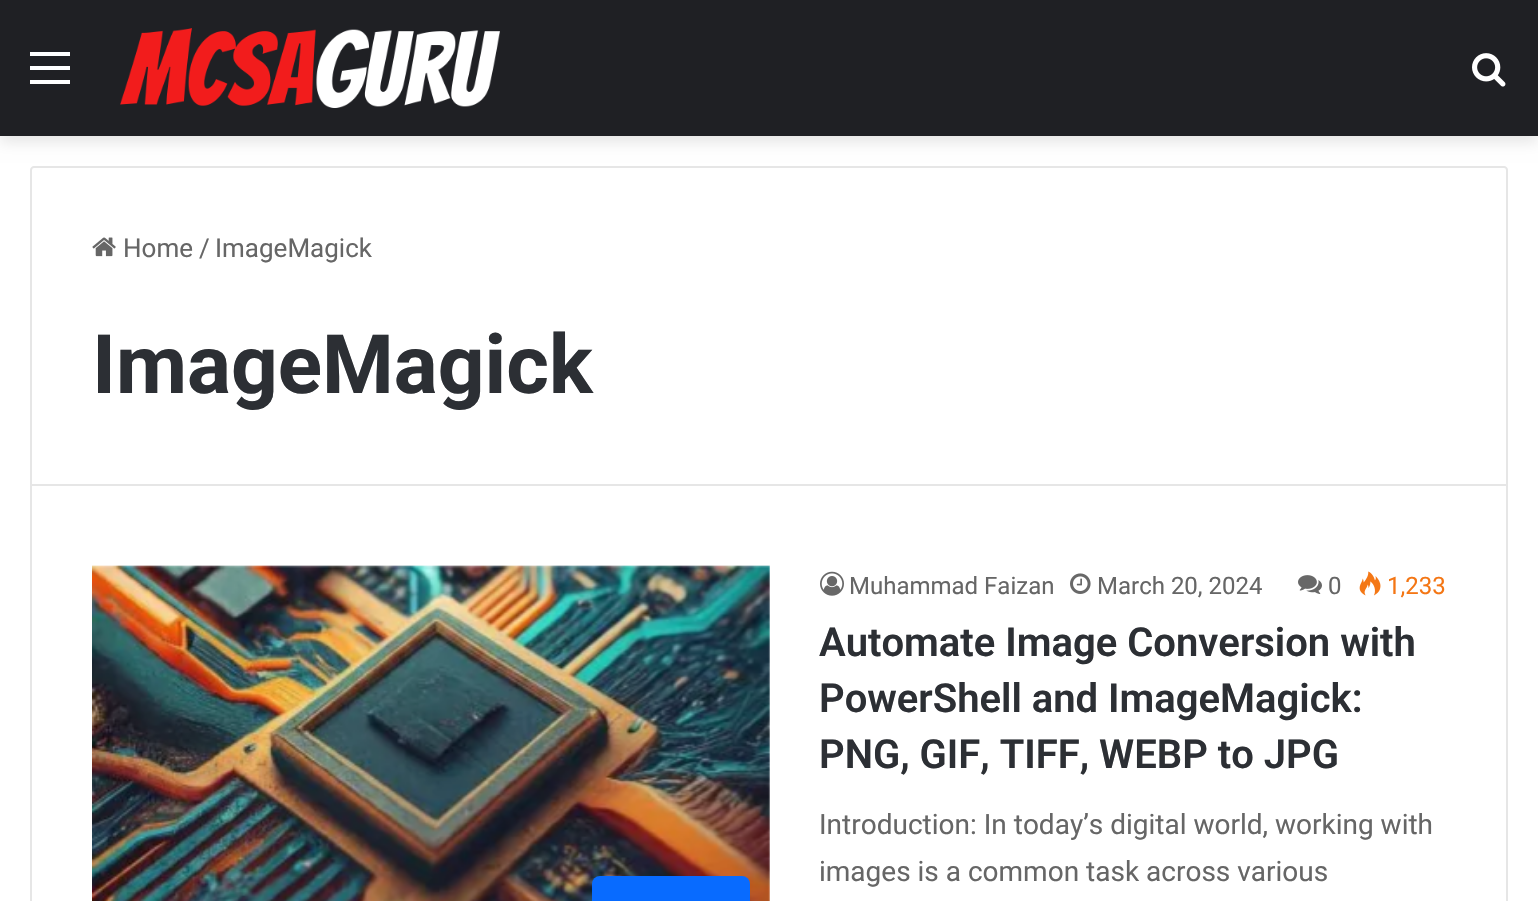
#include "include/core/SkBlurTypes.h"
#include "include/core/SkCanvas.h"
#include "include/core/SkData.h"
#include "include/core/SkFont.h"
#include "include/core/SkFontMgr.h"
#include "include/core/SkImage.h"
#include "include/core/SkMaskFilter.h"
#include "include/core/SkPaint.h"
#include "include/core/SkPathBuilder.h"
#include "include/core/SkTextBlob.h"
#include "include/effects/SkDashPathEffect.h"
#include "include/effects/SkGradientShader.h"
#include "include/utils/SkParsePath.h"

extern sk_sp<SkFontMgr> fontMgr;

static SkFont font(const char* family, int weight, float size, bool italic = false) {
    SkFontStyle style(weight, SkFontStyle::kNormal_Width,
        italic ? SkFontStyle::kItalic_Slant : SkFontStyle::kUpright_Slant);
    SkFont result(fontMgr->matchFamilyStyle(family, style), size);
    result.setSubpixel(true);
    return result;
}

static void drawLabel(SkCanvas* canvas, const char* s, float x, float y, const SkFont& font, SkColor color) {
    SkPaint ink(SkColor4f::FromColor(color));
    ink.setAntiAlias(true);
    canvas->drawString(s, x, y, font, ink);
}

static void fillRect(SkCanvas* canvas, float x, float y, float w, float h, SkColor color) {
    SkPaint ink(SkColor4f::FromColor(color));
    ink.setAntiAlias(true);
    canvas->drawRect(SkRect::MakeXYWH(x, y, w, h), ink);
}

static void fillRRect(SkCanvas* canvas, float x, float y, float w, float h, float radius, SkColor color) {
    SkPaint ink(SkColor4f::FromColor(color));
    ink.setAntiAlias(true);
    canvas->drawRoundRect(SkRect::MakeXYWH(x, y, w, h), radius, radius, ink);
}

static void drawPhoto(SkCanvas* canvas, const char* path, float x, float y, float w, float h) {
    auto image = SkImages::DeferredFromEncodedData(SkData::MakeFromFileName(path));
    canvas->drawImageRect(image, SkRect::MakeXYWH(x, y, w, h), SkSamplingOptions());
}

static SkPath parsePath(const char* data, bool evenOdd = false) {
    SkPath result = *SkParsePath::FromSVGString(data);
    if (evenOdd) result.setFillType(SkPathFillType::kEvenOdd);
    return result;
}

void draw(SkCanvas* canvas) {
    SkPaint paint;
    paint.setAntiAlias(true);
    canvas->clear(0xFFFFFFFF);
    paint.setColor(0x1A000000);
    paint.setMaskFilter(SkMaskFilter::MakeBlur(kNormal_SkBlurStyle, 7));
    canvas->drawRect(SkRect::MakeXYWH(0, 6, 1538, 136), paint);
    paint.setMaskFilter(nullptr);
    fillRect(canvas, 0, 0, 1538, 136, 0xFF1F2024);
    fillRect(canvas, 30, 66, 40, 4, 0xFFFFFFFF);
    fillRect(canvas, 30, 52, 40, 4, 0xFFFFFFFF);
    fillRect(canvas, 30, 80, 40, 4, 0xFFFFFFFF);
    drawPhoto(canvas, "assets/img1.png", 120, 28, 380, 80);
    drawPhoto(canvas, "assets/img2.png", 1472, 53, 34, 34);
    paint.setStroke(true);
    paint.setStrokeWidth(2);
    paint.setColor(0xFFE6E6E6);
    canvas->drawPath(parsePath("M34 167H1504C1505.5 167 1507 168.5 1507 170V485H31V170C31 168.5 32.5 167 34 167Z"), paint);
    drawPhoto(canvas, "assets/img3.png", 92, 237, 24, 20);
    SkFont font1 = font("Roboto", 400, 26);
    drawLabel(canvas, "Home", 123, 257, font1, 0xFF666666);
    drawLabel(canvas, "/", 199, 257, font1, 0xFF666666);
    drawLabel(canvas, "ImageMagick", 215, 257, font1, 0xFF666666);
    SkFont font2 = font("Roboto", 700, 82);
    drawLabel(canvas, "ImageMagick", 92, 393, font2, 0xFF2C2F34);
    fillRect(canvas, 1506, 486, 2, 415, 0xFFE6E6E6);
    fillRect(canvas, 30, 486, 2, 415, 0xFFE6E6E6);
    drawPhoto(canvas, "assets/img4.png", 92, 565, 678, 336);
    fillRRect(canvas, 592, 876, 158, 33, 8, 0xFF086BFF);
    drawPhoto(canvas, "assets/img5.png", 820, 571, 24, 25);
    SkFont font3 = font("Roboto", 400, 24);
    drawLabel(canvas, "Muhammad Faizan", 849, 594, font3, 0xFF666666);
    drawPhoto(canvas, "assets/img6.png", 1070, 573, 21, 21);
    drawLabel(canvas, "March 20, 2024", 1097, 594, font3, 0xFF666666);
    drawPhoto(canvas, "assets/img7.png", 1298, 575, 24, 19);
    drawLabel(canvas, "0", 1328, 594, font3, 0xFF666666);
    drawPhoto(canvas, "assets/img8.png", 1359, 571, 22, 25);
    drawLabel(canvas, "1,233", 1387, 594, font3, 0xFFF47614);
    SkFont font4 = font("Roboto", 600, 40);
    drawLabel(canvas, "Automate Image Conversion with", 819, 656, font4, 0xFF2C2F34);
    drawLabel(canvas, "PowerShell and ImageMagick:", 819, 712, font4, 0xFF2C2F34);
    drawLabel(canvas, "PNG, GIF, TIFF, WEBP to JPG", 819, 768, font4, 0xFF2C2F34);
    SkFont font5 = font("Roboto", 400, 28);
    drawLabel(canvas, "Introduction: In today’s digital world, working with", 819, 834, font5, 0xFF666666);
    drawLabel(canvas, "images is a common task across various", 819, 881, font5, 0xFF666666);
}
